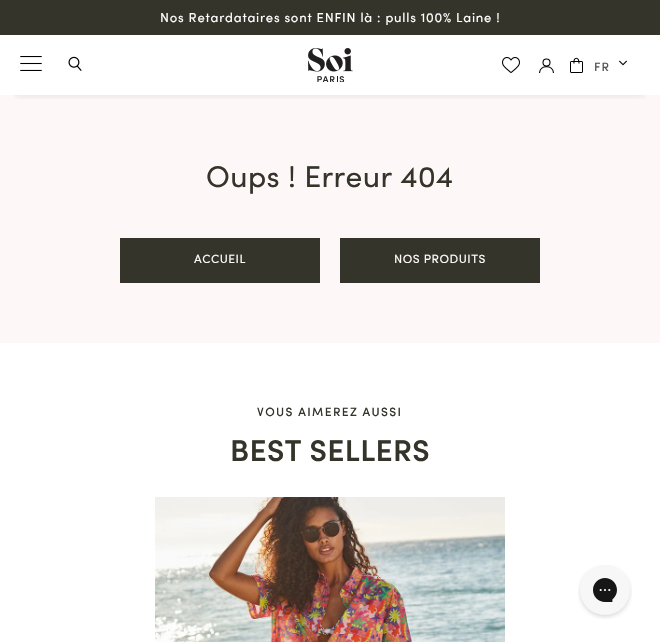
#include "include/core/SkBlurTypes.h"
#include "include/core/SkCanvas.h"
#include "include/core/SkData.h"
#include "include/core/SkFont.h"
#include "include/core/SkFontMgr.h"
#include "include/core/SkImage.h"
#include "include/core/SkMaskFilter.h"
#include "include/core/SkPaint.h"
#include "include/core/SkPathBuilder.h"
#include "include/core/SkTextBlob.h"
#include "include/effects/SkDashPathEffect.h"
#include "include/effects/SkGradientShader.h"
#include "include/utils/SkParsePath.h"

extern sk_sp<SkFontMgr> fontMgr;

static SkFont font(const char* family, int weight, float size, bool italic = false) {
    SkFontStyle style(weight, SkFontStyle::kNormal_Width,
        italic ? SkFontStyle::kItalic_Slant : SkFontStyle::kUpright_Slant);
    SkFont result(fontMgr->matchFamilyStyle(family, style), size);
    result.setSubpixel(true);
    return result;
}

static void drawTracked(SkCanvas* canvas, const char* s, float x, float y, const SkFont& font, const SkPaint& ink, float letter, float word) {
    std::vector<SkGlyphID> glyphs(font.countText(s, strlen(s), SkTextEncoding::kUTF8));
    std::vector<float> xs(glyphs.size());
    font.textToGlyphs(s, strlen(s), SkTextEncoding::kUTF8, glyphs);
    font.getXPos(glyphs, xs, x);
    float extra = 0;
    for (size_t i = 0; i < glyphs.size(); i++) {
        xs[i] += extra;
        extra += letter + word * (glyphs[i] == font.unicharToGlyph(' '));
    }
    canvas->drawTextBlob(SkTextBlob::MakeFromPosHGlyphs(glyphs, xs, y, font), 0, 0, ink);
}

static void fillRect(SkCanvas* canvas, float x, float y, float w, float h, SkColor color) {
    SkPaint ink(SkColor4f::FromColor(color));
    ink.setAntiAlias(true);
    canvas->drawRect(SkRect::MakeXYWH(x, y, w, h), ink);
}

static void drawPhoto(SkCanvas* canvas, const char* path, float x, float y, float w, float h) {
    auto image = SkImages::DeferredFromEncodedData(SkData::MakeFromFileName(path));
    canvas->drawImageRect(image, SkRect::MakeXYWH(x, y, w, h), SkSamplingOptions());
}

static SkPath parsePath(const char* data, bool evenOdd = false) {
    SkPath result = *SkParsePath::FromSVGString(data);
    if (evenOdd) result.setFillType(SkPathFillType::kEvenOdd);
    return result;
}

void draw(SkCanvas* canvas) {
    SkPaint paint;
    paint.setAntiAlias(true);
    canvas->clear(0xFFFFFFFF);
    fillRect(canvas, 0, 0, 660, 35, 0xFF34342B);
    SkFont font1 = font("Sofia", 400, 13);
    paint.setColor(0xFFFFFFFF);
    drawTracked(canvas, "Nos Retardataires sont ENFIN là : pulls 100% Laine !", 160, 22, font1, paint, 0.8f, 0);
    fillRect(canvas, 0, 95, 660, 248, 0xFFFDF8F7);
    canvas->save();
    canvas->clipRect(SkRect::MakeXYWH(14, 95, 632, 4));
    paint.setColor(0x1A000000);
    paint.setMaskFilter(SkMaskFilter::MakeBlur(kNormal_SkBlurStyle, 5));
    canvas->drawRect(SkRect::MakeXYWH(15, 65, 630, 30), paint);
    paint.setMaskFilter(nullptr);
    canvas->restore();
    drawPhoto(canvas, "assets/img1.png", 20, 56, 22, 15);
    drawPhoto(canvas, "assets/img2.png", 68, 56, 14, 15);
    drawPhoto(canvas, "assets/img3.png", 308, 48, 45, 34);
    drawPhoto(canvas, "assets/img4.png", 502, 57, 18, 16);
    paint.setStroke(true);
    paint.setStrokeWidth(1.1f);
    paint.setColor(0xFF000000);
    canvas->drawPath(parsePath("M539.5 73C540 64.5 553 64.5 553.5 73"), paint);
    canvas->drawCircle(546.5f, 62.5f, 3.5f, paint);
    paint.setStrokeWidth(1);
    canvas->drawRoundRect(SkRect::MakeXYWH(570.5f, 61.5f, 12, 11), 0.5f, 0.5f, paint);
    paint.setStrokeWidth(1.1f);
    canvas->drawPath(parsePath("M574 63.5C573 56.5 579.5 56.5 579 63.5"), paint);
    SkFont font2 = font("Sofia", 500, 12);
    paint.setStroke(false);
    paint.setColor(0xFF545454);
    drawTracked(canvas, "FR", 594, 71, font2, paint, 1, 0);
    drawPhoto(canvas, "assets/img5.png", 619, 60, 8, 6);
    SkFont font3 = font("Sofia", 400, 30);
    paint.setColor(0xFF34342B);
    drawTracked(canvas, "Oups ! Erreur 404", 206, 187, font3, paint, 0.4f, 0);
    fillRect(canvas, 120, 238, 200, 45, 0xFF34342B);
    SkFont font4 = font("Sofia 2", 400, 12);
    paint.setColor(0xFFFDF8F7);
    drawTracked(canvas, "ACCUEIL", 194, 263, font4, paint, 0.5f, 0);
    fillRect(canvas, 340, 238, 200, 45, 0xFF34342B);
    drawTracked(canvas, "NOS PRODUITS", 394, 263, font4, paint, 0.5f, 0);
    paint.setColor(0xFF34342B);
    drawTracked(canvas, "VOUS AIMEREZ AUSSI", 257, 416, font2, paint, 1.4f, 0);
    SkFont font5 = font("Sofia", 600, 30);
    drawTracked(canvas, "BEST SELLERS", 230, 461, font5, paint, 0.4f, 0);
    drawPhoto(canvas, "assets/img6.png", 155, 497, 350, 145);
    drawPhoto(canvas, "assets/img7.png", 578, 565, 54, 54);
}
